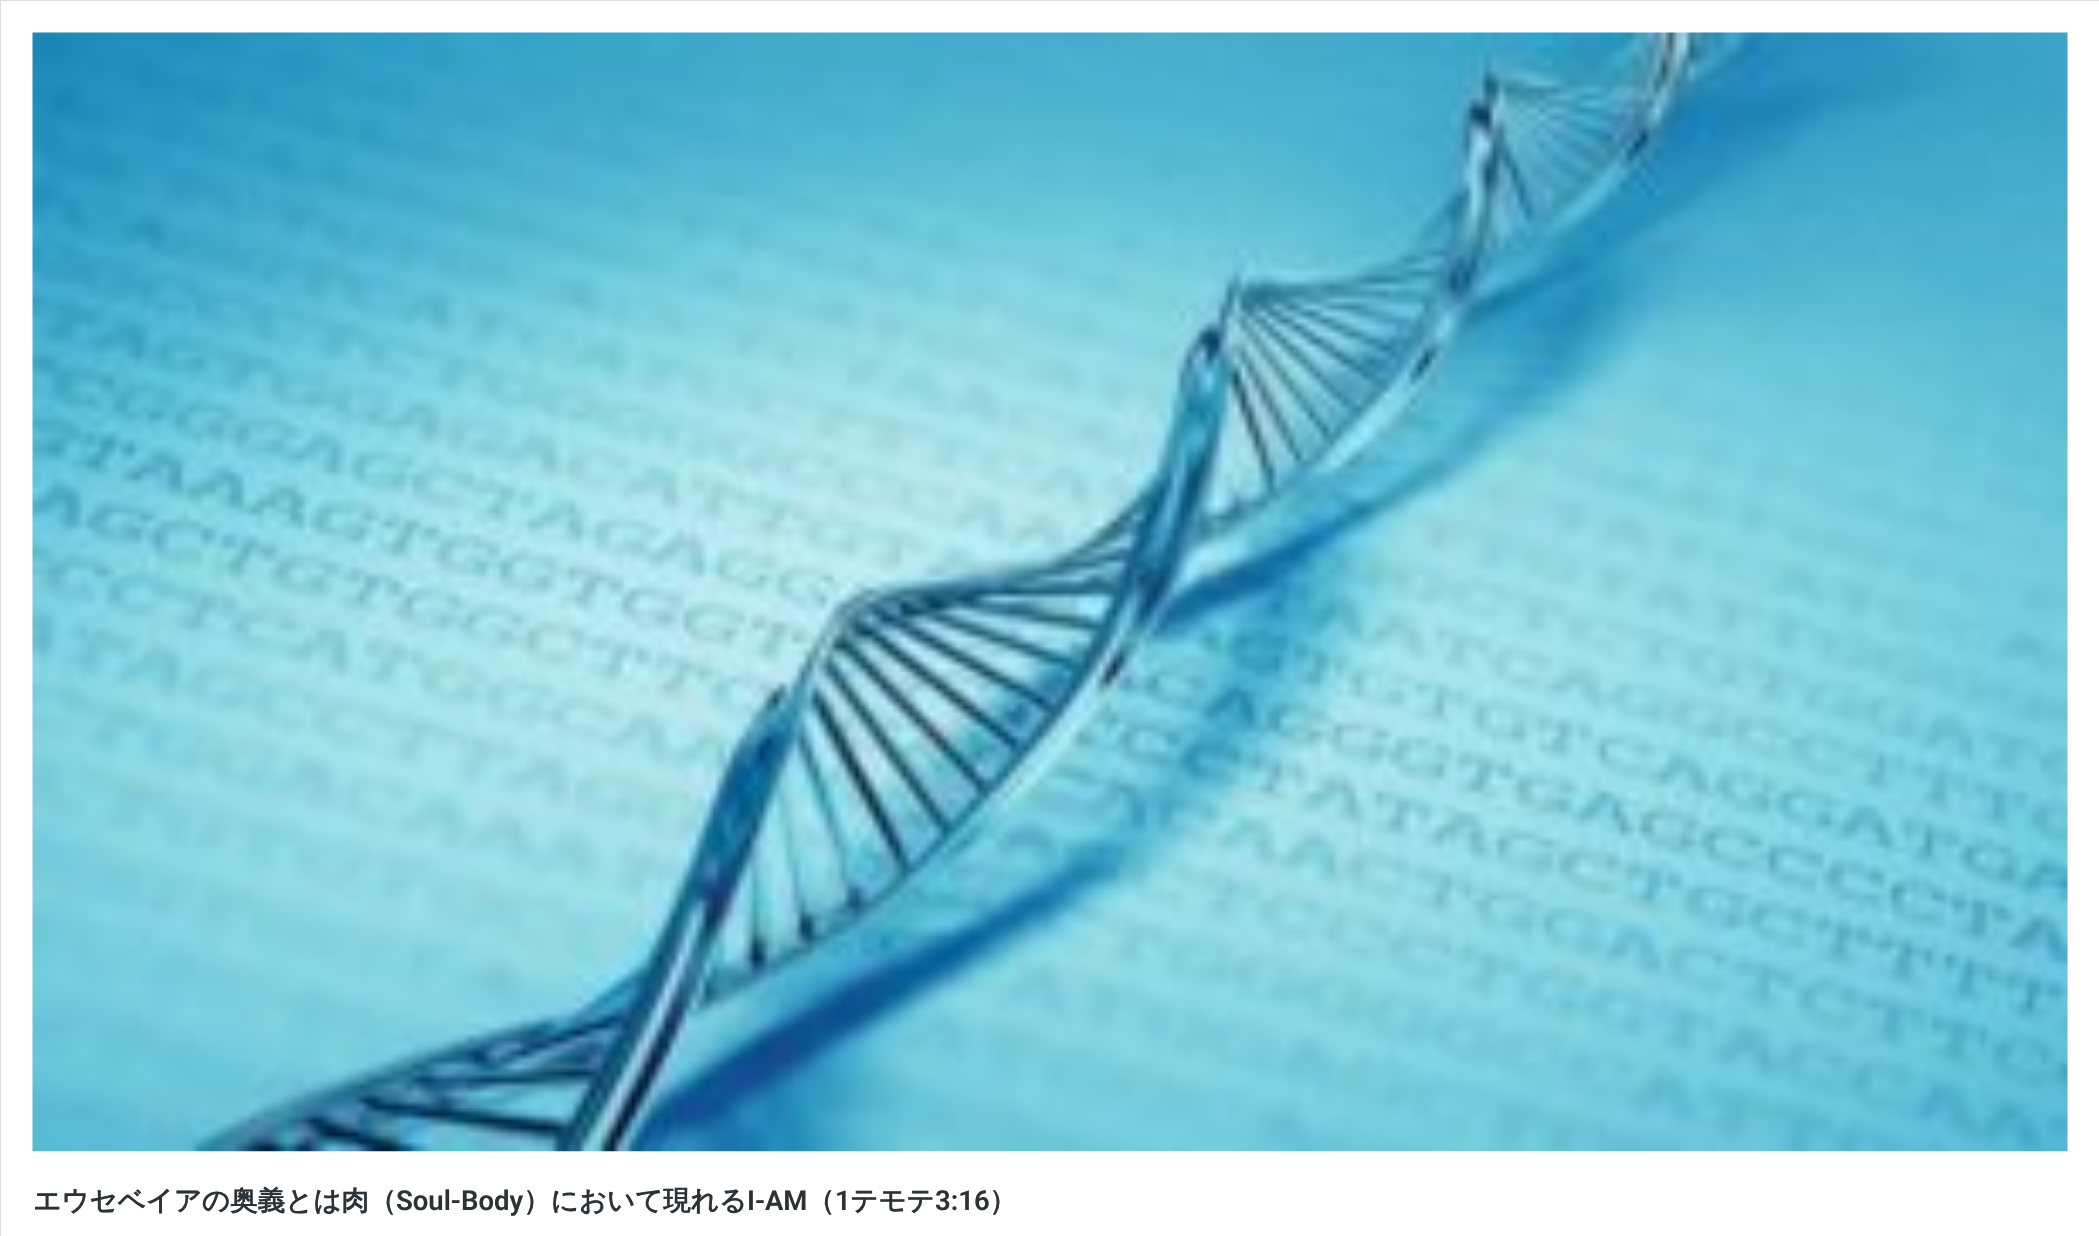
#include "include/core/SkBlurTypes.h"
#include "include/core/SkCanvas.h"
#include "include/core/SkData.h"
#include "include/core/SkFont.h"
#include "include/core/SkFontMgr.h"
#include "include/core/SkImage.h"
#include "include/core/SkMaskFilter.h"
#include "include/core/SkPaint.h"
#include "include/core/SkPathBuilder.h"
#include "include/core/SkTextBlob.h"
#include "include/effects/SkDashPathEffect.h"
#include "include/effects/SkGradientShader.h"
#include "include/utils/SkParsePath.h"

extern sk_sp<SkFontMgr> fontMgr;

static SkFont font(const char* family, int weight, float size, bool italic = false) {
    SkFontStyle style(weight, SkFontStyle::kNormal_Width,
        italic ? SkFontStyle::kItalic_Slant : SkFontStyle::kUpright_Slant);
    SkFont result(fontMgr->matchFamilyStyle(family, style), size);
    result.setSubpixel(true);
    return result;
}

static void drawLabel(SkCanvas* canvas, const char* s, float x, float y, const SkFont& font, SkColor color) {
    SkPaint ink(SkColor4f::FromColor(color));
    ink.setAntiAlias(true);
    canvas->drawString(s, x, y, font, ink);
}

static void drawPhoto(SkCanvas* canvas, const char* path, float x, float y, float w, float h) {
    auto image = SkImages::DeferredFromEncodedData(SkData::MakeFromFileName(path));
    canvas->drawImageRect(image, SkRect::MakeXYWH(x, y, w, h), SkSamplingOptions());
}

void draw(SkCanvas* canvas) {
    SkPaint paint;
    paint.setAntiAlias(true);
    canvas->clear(0xFFFFFFFF);
    paint.setStroke(true);
    paint.setStrokeWidth(1);
    paint.setColor(0xFFDCDCDE);
    canvas->drawRect(SkRect::MakeXYWH(0.5f, 0.5f, 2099, 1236), paint);
    drawPhoto(canvas, "assets/img1.png", 32, 32, 2036, 1120);
    SkFont font1 = font("WenQuanYi Zen Hei", 700, 27.5f);
    drawLabel(canvas, "エウセベイアの奥義とは肉（", 33, 1210, font1, 0xFF2C3338);
    SkFont font2 = font("Roboto", 600, 27.5f);
    drawLabel(canvas, "Soul-Body", 396, 1210, font2, 0xFF2C3338);
    drawLabel(canvas, "）において現れる", 523, 1210, font1, 0xFF2C3338);
    drawLabel(canvas, "I-AM", 747, 1210, font2, 0xFF2C3338);
    drawLabel(canvas, "（", 807, 1210, font1, 0xFF2C3338);
    drawLabel(canvas, "1", 835, 1210, font2, 0xFF2C3338);
    drawLabel(canvas, "テモテ", 850, 1210, font1, 0xFF2C3338);
    drawLabel(canvas, "3:16", 935, 1210, font2, 0xFF2C3338);
    drawLabel(canvas, "）", 989, 1210, font1, 0xFF2C3338);
}
